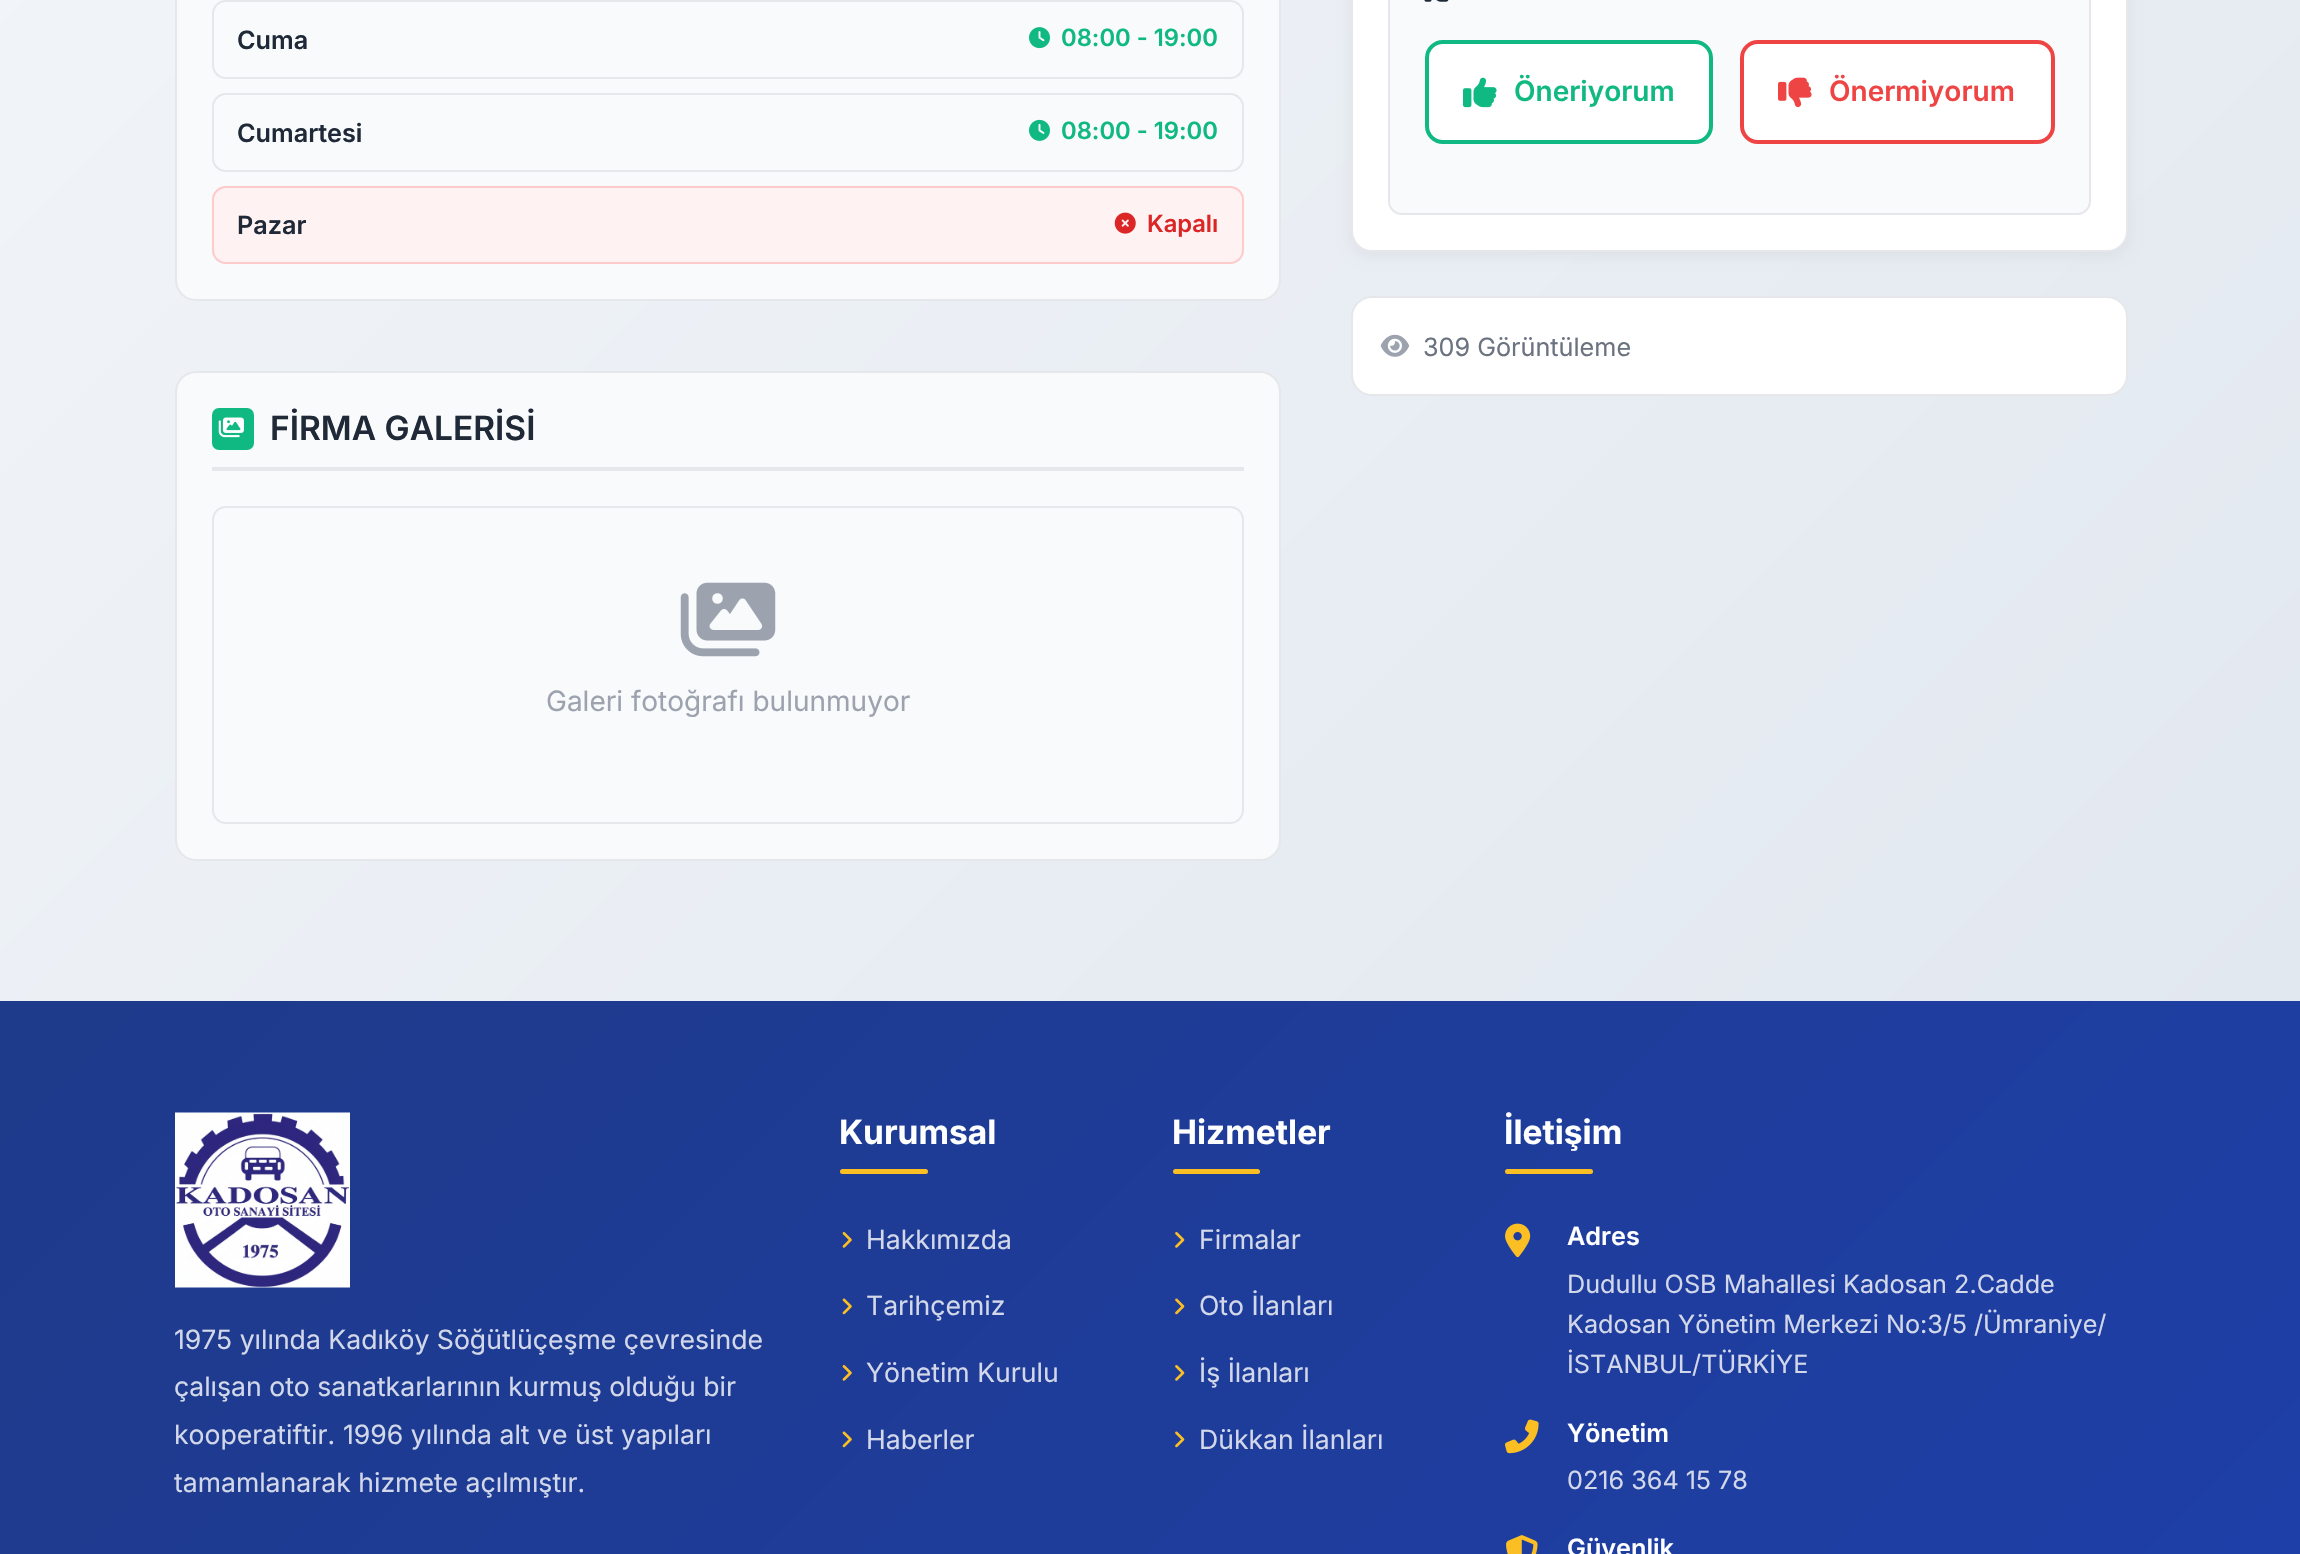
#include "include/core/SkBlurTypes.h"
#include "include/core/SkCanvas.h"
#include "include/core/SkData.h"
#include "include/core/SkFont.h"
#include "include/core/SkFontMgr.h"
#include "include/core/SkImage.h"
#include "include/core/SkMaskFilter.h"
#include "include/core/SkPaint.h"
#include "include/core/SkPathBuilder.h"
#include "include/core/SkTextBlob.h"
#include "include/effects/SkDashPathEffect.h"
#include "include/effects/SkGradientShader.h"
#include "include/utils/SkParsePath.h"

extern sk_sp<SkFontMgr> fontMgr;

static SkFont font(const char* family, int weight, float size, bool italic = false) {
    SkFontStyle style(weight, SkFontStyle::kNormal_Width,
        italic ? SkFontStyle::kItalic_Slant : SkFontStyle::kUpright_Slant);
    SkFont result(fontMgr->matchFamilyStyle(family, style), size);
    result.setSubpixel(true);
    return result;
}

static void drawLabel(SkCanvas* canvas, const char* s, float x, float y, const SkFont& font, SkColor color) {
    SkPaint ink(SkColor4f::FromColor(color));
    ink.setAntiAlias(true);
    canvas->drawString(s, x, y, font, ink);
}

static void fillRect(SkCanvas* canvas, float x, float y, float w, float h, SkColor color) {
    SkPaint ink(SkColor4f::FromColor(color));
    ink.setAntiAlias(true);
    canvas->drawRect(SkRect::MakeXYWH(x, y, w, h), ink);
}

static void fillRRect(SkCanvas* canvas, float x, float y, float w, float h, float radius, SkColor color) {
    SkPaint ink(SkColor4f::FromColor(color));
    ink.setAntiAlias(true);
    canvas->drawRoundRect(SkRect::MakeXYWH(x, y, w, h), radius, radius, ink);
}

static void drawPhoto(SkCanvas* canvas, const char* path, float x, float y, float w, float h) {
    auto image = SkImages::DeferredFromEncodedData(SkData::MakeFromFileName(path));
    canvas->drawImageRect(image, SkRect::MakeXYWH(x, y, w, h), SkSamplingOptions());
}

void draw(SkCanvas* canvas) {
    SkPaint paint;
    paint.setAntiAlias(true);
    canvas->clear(0xFFFFFFFF);
    {
        const SkColor colors[] = {0xFFF8FAFC, 0xFFE2E8F0};
        const float stops[] = {0, 1};
        const SkPoint ends[] = {{-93, -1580}, {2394, 908}};
        paint.setShader(SkGradientShader::MakeLinear(ends, colors, stops, 2, SkTileMode::kClamp));
        paint.setAlpha(255);
    }
    canvas->drawRect(SkRect::MakeXYWH(0, 0, 2300, 1001), paint);
    paint.setShader(nullptr);
    paint.setColor(0xFFF8FAFC);
    canvas->drawRoundRect(SkRect::MakeXYWH(176, -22, 1104, 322), 20, 20, paint);
    paint.setStroke(true);
    paint.setStrokeWidth(2);
    paint.setColor(0xFFE5E7EB);
    canvas->drawRoundRect(SkRect::MakeXYWH(176, -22, 1104, 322), 20, 20, paint);
    canvas->drawRoundRect(SkRect::MakeXYWH(213, 1, 1030, 77), 13, 13, paint);
    SkFont font1 = font("Inter", 600, 25.2f);
    drawLabel(canvas, "Cuma", 237, 49, font1, 0xFF1F2937);
    drawPhoto(canvas, "assets/img1.png", 1029, 27, 21, 22);
    SkFont font2 = font("Inter", 600, 23.75f);
    drawLabel(canvas, "08:00 - 19:00", 1061, 46, font2, 0xFF10B981);
    canvas->drawRoundRect(SkRect::MakeXYWH(213, 94, 1030, 77), 13, 13, paint);
    drawLabel(canvas, "Cumartesi", 237, 142, font1, 0xFF1F2937);
    drawPhoto(canvas, "assets/img2.png", 1029, 119, 21, 22);
    drawLabel(canvas, "08:00 - 19:00", 1061, 139, font2, 0xFF10B981);
    paint.setStroke(false);
    paint.setColor(0xFFFEF2F2);
    canvas->drawRoundRect(SkRect::MakeXYWH(213, 187, 1030, 76), 13, 13, paint);
    paint.setStroke(true);
    paint.setColor(0xFFFECACA);
    canvas->drawRoundRect(SkRect::MakeXYWH(213, 187, 1030, 76), 13, 13, paint);
    drawLabel(canvas, "Pazar", 237, 234, font1, 0xFF1F2937);
    drawPhoto(canvas, "assets/img3.png", 1114, 212, 22, 22);
    drawLabel(canvas, "Kapalı", 1147, 232, font2, 0xFFDC2626);
    paint.setStroke(false);
    paint.setColor(0xFFF8FAFC);
    canvas->drawRoundRect(SkRect::MakeXYWH(176, 372, 1104, 488), 20, 20, paint);
    paint.setStroke(true);
    paint.setColor(0xFFE5E7EB);
    canvas->drawRoundRect(SkRect::MakeXYWH(176, 372, 1104, 488), 20, 20, paint);
    fillRect(canvas, 212, 467, 1032, 4, 0xFFE5E7EB);
    fillRRect(canvas, 212, 408, 42, 42, 7, 0xFF10B981);
    drawPhoto(canvas, "assets/img4.png", 218, 417, 26, 21);
    SkFont font3 = font("Inter", 600, 33.5f);
    drawLabel(canvas, "FİRMA GALERİSİ", 270, 440, font3, 0xFF1F2937);
    canvas->drawRoundRect(SkRect::MakeXYWH(213, 507, 1030, 316), 13, 13, paint);
    drawPhoto(canvas, "assets/img5.png", 680, 582, 96, 75);
    SkFont font4 = font("Inter", 400, 28);
    drawLabel(canvas, "Galeri fotoğrafı bulunmuyor", 546, 711, font4, 0xFF9CA3AF);
    paint.setStroke(false);
    paint.setColor(0x0D000000);
    paint.setMaskFilter(SkMaskFilter::MakeBlur(kNormal_SkBlurStyle, 7));
    canvas->drawRoundRect(SkRect::MakeXYWH(1351, -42, 777, 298), 21, 21, paint);
    paint.setMaskFilter(nullptr);
    paint.setColor(0xFFFFFFFF);
    canvas->drawRoundRect(SkRect::MakeXYWH(1352, -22, 775, 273), 20, 20, paint);
    paint.setStroke(true);
    paint.setColor(0xFFE5E7EB);
    canvas->drawRoundRect(SkRect::MakeXYWH(1352, -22, 775, 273), 20, 20, paint);
    paint.setStroke(false);
    paint.setColor(0xFFF8FAFC);
    canvas->drawRoundRect(SkRect::MakeXYWH(1389, -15, 701, 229), 13, 13, paint);
    paint.setStroke(true);
    paint.setColor(0xFFE5E7EB);
    canvas->drawRoundRect(SkRect::MakeXYWH(1389, -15, 701, 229), 13, 13, paint);
    drawPhoto(canvas, "assets/img6.png", 1424, 0, 25, 2);
    paint.setStroke(false);
    paint.setColor(0xFFFFFFFF);
    canvas->drawRoundRect(SkRect::MakeXYWH(1427, 42, 284, 100), 16, 16, paint);
    paint.setStroke(true);
    paint.setStrokeWidth(4);
    paint.setColor(0xFF10B981);
    canvas->drawRoundRect(SkRect::MakeXYWH(1427, 42, 284, 100), 16, 16, paint);
    drawPhoto(canvas, "assets/img7.png", 1463, 77, 34, 31);
    SkFont font5 = font("Inter", 600, 28);
    drawLabel(canvas, "Öneriyorum", 1514, 101, font5, 0xFF10B981);
    paint.setStroke(false);
    paint.setColor(0xFFFFFFFF);
    canvas->drawRoundRect(SkRect::MakeXYWH(1742, 42, 311, 100), 16, 16, paint);
    paint.setStroke(true);
    paint.setColor(0xFFEF4444);
    canvas->drawRoundRect(SkRect::MakeXYWH(1742, 42, 311, 100), 16, 16, paint);
    drawPhoto(canvas, "assets/img8.png", 1778, 77, 34, 31);
    drawLabel(canvas, "Önermiyorum", 1829, 101, font5, 0xFFEF4444);
    paint.setStroke(false);
    paint.setColor(0xFFFFFFFF);
    canvas->drawRoundRect(SkRect::MakeXYWH(1352, 297, 775, 98), 20, 20, paint);
    paint.setStroke(true);
    paint.setStrokeWidth(2);
    paint.setColor(0xFFE5E7EB);
    canvas->drawRoundRect(SkRect::MakeXYWH(1352, 297, 775, 98), 20, 20, paint);
    drawPhoto(canvas, "assets/img9.png", 1380, 334, 30, 23);
    SkFont font6 = font("Inter", 400, 25.2f);
    drawLabel(canvas, "309 Görüntüleme", 1423, 356, font6, 0xFF6B7280);
    paint.setStroke(false);
    {
        const SkColor colors[] = {0xFF1E3A8A, 0xFF1E40AF};
        const float stops[] = {0, 1};
        const SkPoint ends[] = {{252, 749}, {2049, 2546}};
        paint.setShader(SkGradientShader::MakeLinear(ends, colors, stops, 2, SkTileMode::kClamp));
        paint.setAlpha(255);
    }
    canvas->drawRect(SkRect::MakeXYWH(0, 1001, 2300, 553), paint);
    drawPhoto(canvas, "assets/img10.png", 175, 1112, 175, 176);
    SkFont font7 = font("Inter", 400, 26.6f);
    drawLabel(canvas, "1975 yılında Kadıköy Söğütlüçeşme çevresinde", 174, 1349, font7, 0xFFD2D8E9);
    drawLabel(canvas, "çalışan oto sanatkarlarının kurmuş olduğu bir", 174, 1396, font7, 0xFFD2D8E9);
    drawLabel(canvas, "kooperatiftir.", 174, 1444, font7, 0xFFD2D8E9);
    drawLabel(canvas, "1996 yılında alt ve üst yapıları", 343, 1444, font7, 0xFFD2D8E9);
    drawLabel(canvas, "tamamlanarak hizmete açılmıştır.", 174, 1492, font7, 0xFFD2D8E9);
    SkFont font8 = font("Inter", 700, 33.5f);
    drawLabel(canvas, "Kurumsal", 839, 1144, font8, 0xFFFFFFFF);
    fillRRect(canvas, 840, 1169, 88, 5, 2.5f, 0xFFFBBF24);
    drawPhoto(canvas, "assets/img11.png", 842, 1232, 10, 16);
    drawLabel(canvas, "Hakkımızda", 866, 1249, font7, 0xFFD2D8E9);
    drawPhoto(canvas, "assets/img12.png", 842, 1298, 10, 17);
    drawLabel(canvas, "Tarihçemiz", 866, 1315, font7, 0xFFD2D8E9);
    drawPhoto(canvas, "assets/img13.png", 842, 1365, 10, 16);
    drawLabel(canvas, "Yönetim Kurulu", 866, 1382, font7, 0xFFD2D8E9);
    drawPhoto(canvas, "assets/img14.png", 842, 1431, 10, 17);
    drawLabel(canvas, "Haberler", 866, 1449, font7, 0xFFD2D8E9);
    drawLabel(canvas, "Hizmetler", 1172, 1144, font8, 0xFFFFFFFF);
    fillRRect(canvas, 1173, 1169, 87, 5, 2.5f, 0xFFFBBF24);
    drawPhoto(canvas, "assets/img15.png", 1175, 1232, 10, 16);
    drawLabel(canvas, "Firmalar", 1199, 1249, font7, 0xFFD2D8E9);
    drawPhoto(canvas, "assets/img16.png", 1175, 1298, 10, 17);
    drawLabel(canvas, "Oto İlanları", 1199, 1315, font7, 0xFFD2D8E9);
    drawPhoto(canvas, "assets/img17.png", 1175, 1365, 10, 16);
    drawLabel(canvas, "İş İlanları", 1199, 1382, font7, 0xFFD2D8E9);
    drawPhoto(canvas, "assets/img18.png", 1175, 1431, 10, 17);
    drawLabel(canvas, "Dükkan İlanları", 1199, 1449, font7, 0xFFD2D8E9);
    drawLabel(canvas, "İletişim", 1504, 1144, font8, 0xFFFFFFFF);
    fillRRect(canvas, 1505, 1169, 88, 5, 2.5f, 0xFFFBBF24);
    drawPhoto(canvas, "assets/img19.png", 1505, 1223, 26, 35);
    drawLabel(canvas, "Adres", 1567, 1245, font1, 0xFFFFFFFF);
    drawLabel(canvas, "Dudullu OSB Mahallesi Kadosan 2.Cadde", 1567, 1293, font6, 0xFFD2D8E9);
    drawLabel(canvas, "Kadosan Yönetim Merkezi No:3/5 /Ümraniye/", 1567, 1333, font6, 0xFFD2D8E9);
    drawLabel(canvas, "İSTANBUL/TÜRKİYE", 1567, 1373, font6, 0xFFD2D8E9);
    drawPhoto(canvas, "assets/img20.png", 1505, 1419, 34, 35);
    drawLabel(canvas, "Yönetim", 1567, 1442, font1, 0xFFFFFFFF);
    drawLabel(canvas, "0216 364 15 78", 1567, 1489, font6, 0xFFD2D8E9);
    drawPhoto(canvas, "assets/img21.png", 1506, 1535, 32, 19);
    drawLabel(canvas, "Güvenlik", 1567, 1557, font1, 0xFFFFFFFF);
}
